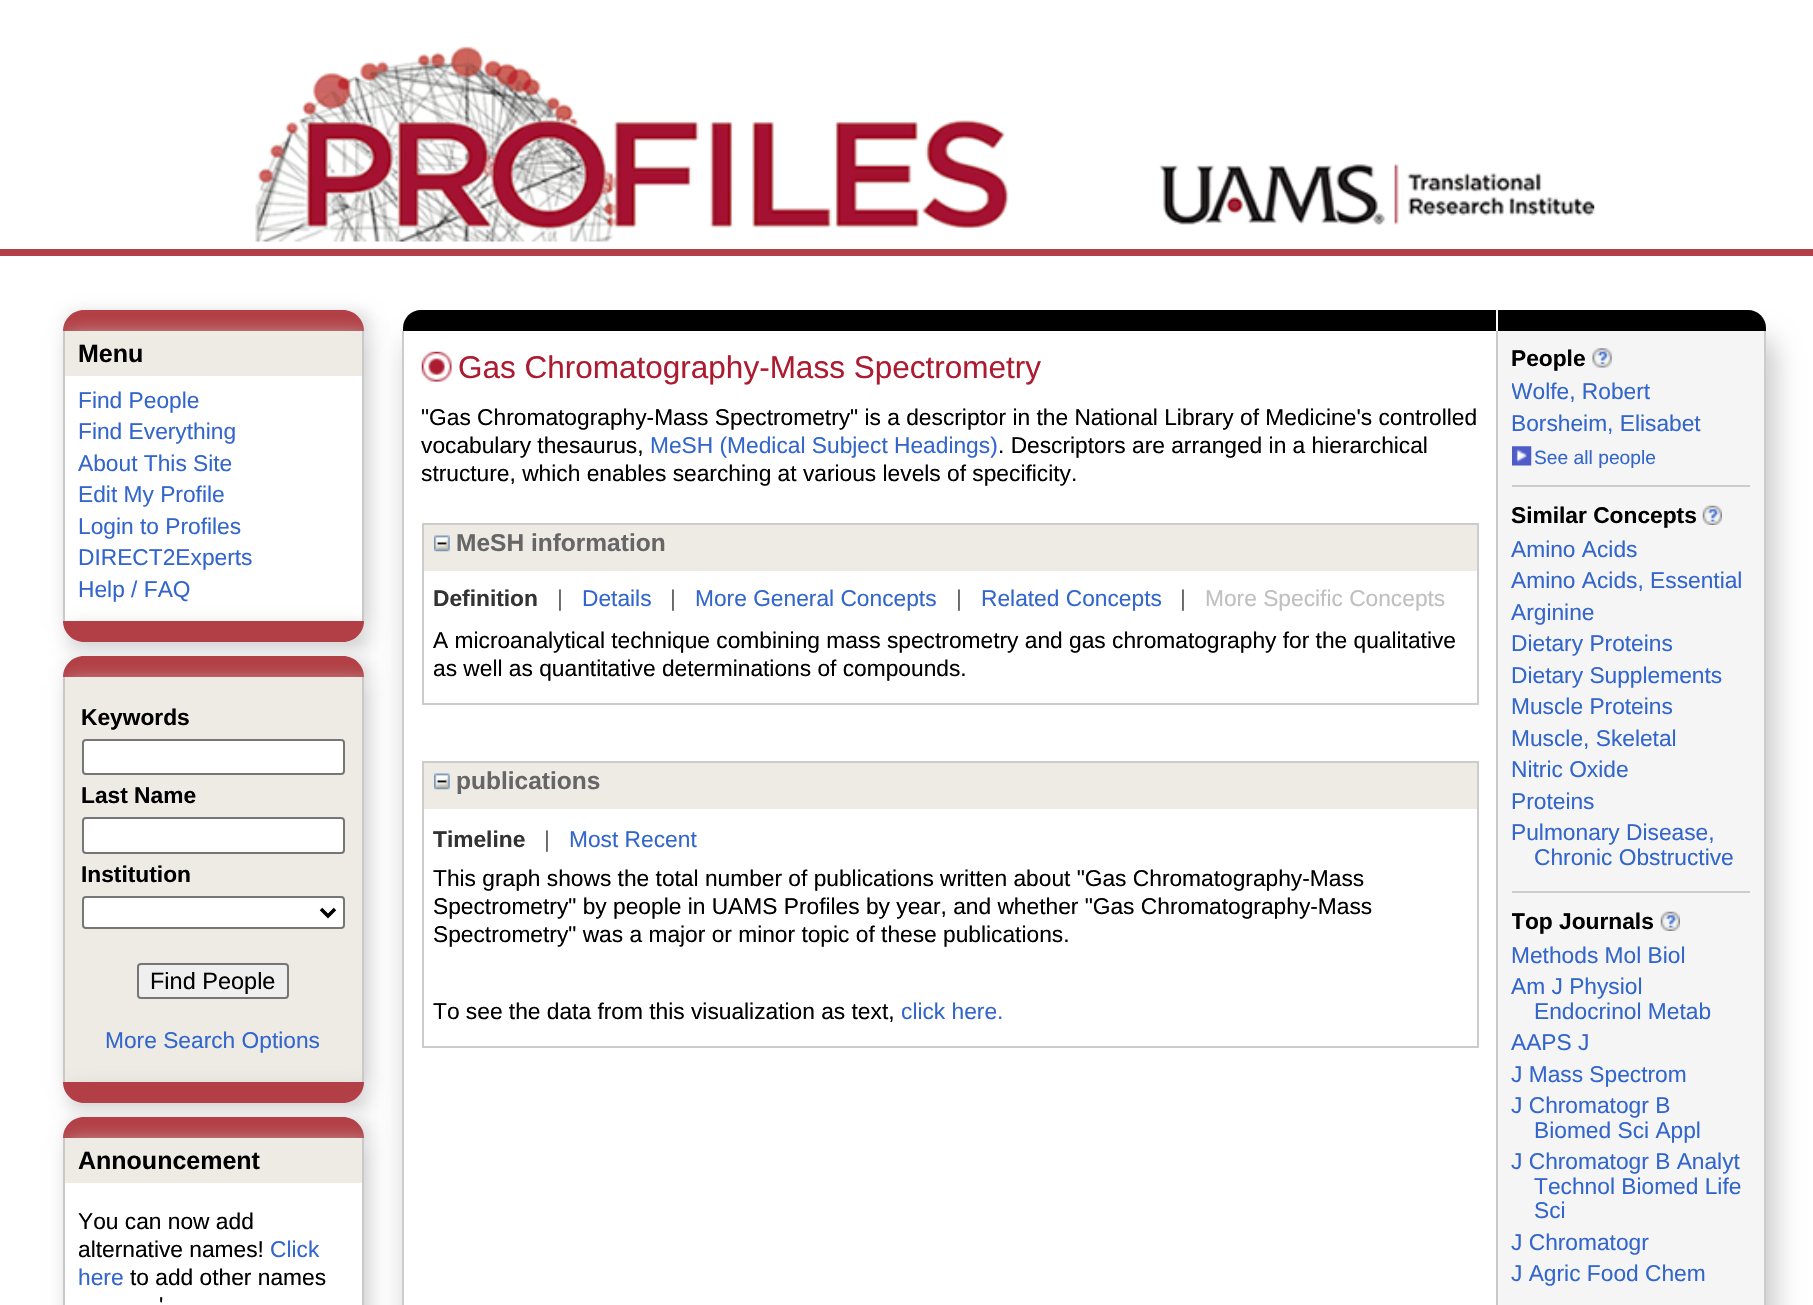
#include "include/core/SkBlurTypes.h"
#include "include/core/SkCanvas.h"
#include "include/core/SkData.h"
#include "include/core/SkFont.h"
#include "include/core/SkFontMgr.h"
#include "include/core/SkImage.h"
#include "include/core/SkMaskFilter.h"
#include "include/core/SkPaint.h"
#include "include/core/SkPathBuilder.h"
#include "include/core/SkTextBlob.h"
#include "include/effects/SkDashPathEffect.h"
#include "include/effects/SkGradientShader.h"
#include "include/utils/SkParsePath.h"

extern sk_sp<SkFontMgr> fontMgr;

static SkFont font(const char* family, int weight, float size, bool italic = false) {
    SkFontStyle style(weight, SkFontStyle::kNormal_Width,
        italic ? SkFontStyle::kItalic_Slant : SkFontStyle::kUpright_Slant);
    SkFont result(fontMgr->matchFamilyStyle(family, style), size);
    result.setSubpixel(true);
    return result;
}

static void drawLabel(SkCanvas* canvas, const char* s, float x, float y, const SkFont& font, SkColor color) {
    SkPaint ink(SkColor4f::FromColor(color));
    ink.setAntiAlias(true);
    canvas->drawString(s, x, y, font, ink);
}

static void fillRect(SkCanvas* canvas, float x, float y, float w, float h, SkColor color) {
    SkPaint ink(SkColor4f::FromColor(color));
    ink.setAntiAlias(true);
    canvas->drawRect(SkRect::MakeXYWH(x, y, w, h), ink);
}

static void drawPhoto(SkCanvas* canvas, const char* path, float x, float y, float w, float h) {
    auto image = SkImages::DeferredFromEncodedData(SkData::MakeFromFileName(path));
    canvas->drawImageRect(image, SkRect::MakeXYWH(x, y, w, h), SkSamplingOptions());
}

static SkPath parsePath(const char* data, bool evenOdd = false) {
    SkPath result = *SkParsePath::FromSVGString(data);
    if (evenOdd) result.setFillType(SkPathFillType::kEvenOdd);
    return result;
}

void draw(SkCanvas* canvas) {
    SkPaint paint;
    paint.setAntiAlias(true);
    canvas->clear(0xFFFFFFFF);
    fillRect(canvas, 0, 249, 1813, 7, 0xFFB23F45);
    drawPhoto(canvas, "assets/img1.png", 255, 46, 1340, 196);
    paint.setColor(0xFFCCCCCC);
    paint.setMaskFilter(SkMaskFilter::MakeBlur(kNormal_SkBlurStyle, 9));
    canvas->drawRoundRect(SkRect::MakeXYWH(68, 315, 301, 21), 21, 21, paint);
    paint.setMaskFilter(nullptr);
    paint.setColor(0xFFB23F45);
    canvas->drawPath(parsePath("M84 310H343C354.5 310 364 319.5 364 331H63C63 319.5 72.5 310 84 310Z"), paint);
    paint.setColor(0xFFCCCCCC);
    paint.setMaskFilter(SkMaskFilter::MakeBlur(kNormal_SkBlurStyle, 9));
    canvas->drawRect(SkRect::MakeXYWH(68, 336, 301, 291), paint);
    paint.setMaskFilter(nullptr);
    fillRect(canvas, 65, 376, 297, 245, 0xFFFFFFFF);
    fillRect(canvas, 362, 331, 2, 290, 0xFFC9C9C9);
    fillRect(canvas, 63, 331, 2, 290, 0xFFC9C9C9);
    fillRect(canvas, 65, 331, 297, 45, 0xFFEEEBE5);
    SkFont font1 = font("Liberation Sans", 700, 25);
    drawLabel(canvas, "Menu", 78, 362, font1, 0xFF000000);
    SkFont font2 = font("Liberation Sans", 400, 22.75f);
    drawLabel(canvas, "Find People", 78, 408, font2, 0xFF3366CC);
    drawLabel(canvas, "Find Everything", 78, 439, font2, 0xFF3366CC);
    drawLabel(canvas, "About This Site", 78, 471, font2, 0xFF3366CC);
    drawLabel(canvas, "Edit My Profile", 78, 502, font2, 0xFF3366CC);
    drawLabel(canvas, "Login to Profiles", 78, 534, font2, 0xFF3366CC);
    drawLabel(canvas, "DIRECT2Experts", 78, 565, font2, 0xFF3366CC);
    drawLabel(canvas, "Help / FAQ", 78, 597, font2, 0xFF3366CC);
    paint.setMaskFilter(SkMaskFilter::MakeBlur(kNormal_SkBlurStyle, 9));
    canvas->drawRoundRect(SkRect::MakeXYWH(68, 627, 301, 21), 21, 21, paint);
    paint.setMaskFilter(nullptr);
    paint.setColor(0xFFB23F45);
    canvas->drawPath(parsePath("M63 621H364C364 632.5 354.5 642 343 642H84C72.5 642 63 632.5 63 621Z"), paint);
    paint.setColor(0xFFCCCCCC);
    paint.setMaskFilter(SkMaskFilter::MakeBlur(kNormal_SkBlurStyle, 9));
    canvas->drawRoundRect(SkRect::MakeXYWH(68, 662, 301, 21), 21, 21, paint);
    paint.setMaskFilter(nullptr);
    paint.setColor(0xFFB23F45);
    canvas->drawPath(parsePath("M84 656H343C354.5 656 364 665.5 364 677H63C63 665.5 72.5 656 84 656Z"), paint);
    paint.setColor(0xFFCCCCCC);
    paint.setMaskFilter(SkMaskFilter::MakeBlur(kNormal_SkBlurStyle, 9));
    canvas->drawRect(SkRect::MakeXYWH(68, 683, 301, 404), paint);
    paint.setMaskFilter(nullptr);
    fillRect(canvas, 362, 677, 2, 405, 0xFFC9C9C9);
    fillRect(canvas, 63, 677, 2, 405, 0xFFC9C9C9);
    fillRect(canvas, 65, 677, 297, 405, 0xFFEEEBE5);
    SkFont font3 = font("Liberation Sans", 700, 22.75f);
    drawLabel(canvas, "Keywords", 81, 725, font3, 0xFF000000);
    paint.setColor(0xFFFFFFFF);
    canvas->drawRoundRect(SkRect::MakeXYWH(83, 740, 261, 34), 3, 3, paint);
    paint.setStroke(true);
    paint.setStrokeWidth(2);
    paint.setColor(0xFF767676);
    canvas->drawRoundRect(SkRect::MakeXYWH(83, 740, 261, 34), 3, 3, paint);
    drawLabel(canvas, "Last Name", 81, 803, font3, 0xFF000000);
    paint.setStroke(false);
    paint.setColor(0xFFFFFFFF);
    canvas->drawRoundRect(SkRect::MakeXYWH(83, 818, 261, 35), 3, 3, paint);
    paint.setStroke(true);
    paint.setColor(0xFF767676);
    canvas->drawRoundRect(SkRect::MakeXYWH(83, 818, 261, 35), 3, 3, paint);
    drawLabel(canvas, "Institution", 81, 882, font3, 0xFF000000);
    paint.setStroke(false);
    paint.setColor(0xFFFFFFFF);
    canvas->drawRoundRect(SkRect::MakeXYWH(83, 897, 261, 31), 3, 3, paint);
    paint.setStroke(true);
    paint.setColor(0xFF767676);
    canvas->drawRoundRect(SkRect::MakeXYWH(83, 897, 261, 31), 3, 3, paint);
    paint.setStrokeWidth(3.5f);
    paint.setColor(0xFF000000);
    canvas->drawPath(parsePath("M321 909L328 916L335 909"), paint);
    paint.setStroke(false);
    paint.setColor(0xFFEFEFEF);
    canvas->drawRoundRect(SkRect::MakeXYWH(138, 964, 150, 34), 3, 3, paint);
    paint.setStroke(true);
    paint.setStrokeWidth(2);
    paint.setColor(0xFF767676);
    canvas->drawRoundRect(SkRect::MakeXYWH(138, 964, 150, 34), 3, 3, paint);
    SkFont font4 = font("Liberation Sans", 400, 23.5f);
    drawLabel(canvas, "Find People", 150, 989, font4, 0xFF000000);
    drawLabel(canvas, "More Search Options", 105, 1048, font2, 0xFF3366CC);
    paint.setStroke(false);
    paint.setColor(0xFFCCCCCC);
    paint.setMaskFilter(SkMaskFilter::MakeBlur(kNormal_SkBlurStyle, 9));
    canvas->drawRoundRect(SkRect::MakeXYWH(68, 1087, 301, 21), 21, 21, paint);
    paint.setMaskFilter(nullptr);
    paint.setColor(0xFFB23F45);
    canvas->drawPath(parsePath("M63 1082H364C364 1093.5 354.5 1103 343 1103H84C72.5 1103 63 1093.5 63 1082Z"), paint);
    paint.setColor(0xFFCCCCCC);
    paint.setMaskFilter(SkMaskFilter::MakeBlur(kNormal_SkBlurStyle, 9));
    canvas->drawRoundRect(SkRect::MakeXYWH(68, 1122, 301, 21), 21, 21, paint);
    paint.setMaskFilter(nullptr);
    paint.setColor(0xFFB23F45);
    canvas->drawPath(parsePath("M84 1117H343C354.5 1117 364 1126.5 364 1138H63C63 1126.5 72.5 1117 84 1117Z"), paint);
    paint.setColor(0xFFCCCCCC);
    paint.setMaskFilter(SkMaskFilter::MakeBlur(kNormal_SkBlurStyle, 9));
    canvas->drawRect(SkRect::MakeXYWH(68, 1143, 301, 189), paint);
    paint.setMaskFilter(nullptr);
    fillRect(canvas, 65, 1183, 297, 122, 0xFFFFFFFF);
    fillRect(canvas, 362, 1138, 2, 167, 0xFFC9C9C9);
    fillRect(canvas, 63, 1138, 2, 167, 0xFFC9C9C9);
    fillRect(canvas, 65, 1138, 297, 45, 0xFFEEEBE5);
    drawLabel(canvas, "Announcement", 78, 1169, font1, 0xFF000000);
    drawLabel(canvas, "You can now add", 78, 1229, font2, 0xFF000000);
    drawLabel(canvas, "alternative names!", 78, 1257, font2, 0xFF000000);
    drawLabel(canvas, "Click", 270, 1257, font2, 0xFF3366CC);
    drawLabel(canvas, "here", 78, 1285, font2, 0xFF3366CC);
    drawLabel(canvas, "to add other names", 130, 1285, font2, 0xFF000000);
    drawLabel(canvas, "'", 159, 1313, font2, 0xFF000000);
    canvas->save();
    canvas->clipPath(parsePath("M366 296H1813V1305H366ZM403 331H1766V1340C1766 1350 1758 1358 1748 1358H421C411 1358 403 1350 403 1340Z", true), true);
    paint.setMaskFilter(SkMaskFilter::MakeBlur(kNormal_SkBlurStyle, 13));
    canvas->drawRoundRect(SkRect::MakeXYWH(406, 336, 1370, 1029), 21, 21, paint);
    paint.setMaskFilter(nullptr);
    canvas->restore();
    paint.setColor(0xFF000000);
    canvas->drawPath(parsePath("M421 310H1748C1758 310 1766 318 1766 328V331H403V328C403 318 411 310 421 310Z"), paint);
    fillRect(canvas, 1496, 310, 2, 21, 0xFFFFFFFF);
    paint.setColor(0xFFCCCCCC);
    canvas->drawPath(parsePath("M402 331H1766V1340C1766 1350 1758 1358 1748 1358H420C410 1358 402 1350 402 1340ZM404 331H1764V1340C1764 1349 1757 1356 1748 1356H420C411 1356 404 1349 404 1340Z", true), paint);
    drawPhoto(canvas, "assets/img2.png", 421, 351, 31, 31);
    SkFont font5 = font("Liberation Sans", 400, 31.5f);
    drawLabel(canvas, "Gas Chromatography-Mass Spectrometry", 458, 378, font5, 0xFFAC1B30);
    drawLabel(canvas, "\"Gas Chromatography-Mass Spectrometry\" is a descriptor in the National Library of Medicine's controlled", 421, 425, font2, 0xFF000000);
    drawLabel(canvas, "vocabulary thesaurus,", 421, 453, font2, 0xFF000000);
    drawLabel(canvas, "MeSH (Medical Subject Headings)", 650, 453, font2, 0xFF3366CC);
    drawLabel(canvas, ". Descriptors are arranged in a hierarchical", 998, 453, font2, 0xFF000000);
    drawLabel(canvas, "structure, which enables searching at various levels of specificity.", 421, 481, font2, 0xFF000000);
    paint.setStroke(true);
    canvas->drawRect(SkRect::MakeXYWH(423, 524, 1055, 180), paint);
    fillRect(canvas, 424, 525, 1053, 46, 0xFFEEEBE5);
    drawPhoto(canvas, "assets/img3.png", 434, 535, 16, 17);
    SkFont font6 = font("Liberation Sans", 700, 24.5f);
    drawLabel(canvas, "MeSH information", 456, 551, font6, 0xFF666666);
    drawLabel(canvas, "Definition", 433, 606, font3, 0xFF333333);
    drawLabel(canvas, "|", 557, 606, font2, 0xFF666666);
    drawLabel(canvas, "Details", 582, 606, font2, 0xFF3366CC);
    drawLabel(canvas, "|", 670, 606, font2, 0xFF666666);
    drawLabel(canvas, "More General Concepts", 695, 606, font2, 0xFF3366CC);
    drawLabel(canvas, "|", 956, 606, font2, 0xFF666666);
    drawLabel(canvas, "Related Concepts", 981, 606, font2, 0xFF3366CC);
    drawLabel(canvas, "|", 1180, 606, font2, 0xFF666666);
    drawLabel(canvas, "More Specific Concepts", 1205, 606, font2, 0xFFC0C0C0);
    drawLabel(canvas, "A microanalytical technique combining mass spectrometry and gas chromatography for the qualitative", 433, 648, font2, 0xFF000000);
    drawLabel(canvas, "as well as quantitative determinations of compounds.", 433, 676, font2, 0xFF000000);
    canvas->drawRect(SkRect::MakeXYWH(423, 762, 1055, 285), paint);
    fillRect(canvas, 424, 763, 1053, 46, 0xFFEEEBE5);
    drawPhoto(canvas, "assets/img3.png", 434, 773, 16, 17);
    drawLabel(canvas, "publications", 456, 789, font6, 0xFF666666);
    drawLabel(canvas, "Timeline", 433, 847, font3, 0xFF333333);
    drawLabel(canvas, "|", 544, 847, font2, 0xFF666666);
    drawLabel(canvas, "Most Recent", 569, 847, font2, 0xFF3366CC);
    drawLabel(canvas, "This graph shows the total number of publications written about \"Gas Chromatography-Mass", 433, 886, font2, 0xFF000000);
    drawLabel(canvas, "Spectrometry\" by people in UAMS Profiles by year, and whether \"Gas Chromatography-Mass", 433, 914, font2, 0xFF000000);
    drawLabel(canvas, "Spectrometry\" was a major or minor topic of these publications.", 433, 942, font2, 0xFF000000);
    drawLabel(canvas, "To see the data from this visualization as text,", 433, 1019, font2, 0xFF000000);
    drawLabel(canvas, "click here.", 901, 1019, font2, 0xFF3366CC);
    fillRect(canvas, 1498, 331, 266, 974, 0xFFF5F5F5);
    fillRect(canvas, 1496, 331, 2, 974, 0xFFC9C9C9);
    drawLabel(canvas, "People", 1511, 366, font3, 0xFF000000);
    drawPhoto(canvas, "assets/img4.png", 1592, 348, 20, 20);
    canvas->save();
    canvas->clipRect(SkRect::MakeXYWH(1512, 373, 238, 70));
    drawLabel(canvas, "Wolfe, Robert", 1511, 399, font2, 0xFF3366CC);
    canvas->restore();
    drawLabel(canvas, "Borsheim, Elisabet", 1511, 431, font2, 0xFF3366CC);
    drawPhoto(canvas, "assets/img5.png", 1512, 446, 20, 20);
    SkFont font7 = font("Liberation Sans", 400, 19.25f);
    drawLabel(canvas, "See all people", 1534, 464, font7, 0xFF3366CC);
    fillRect(canvas, 1512, 485, 238, 2, 0xFFCCCCCC);
    drawLabel(canvas, "Similar Concepts", 1511, 523, font3, 0xFF000000);
    drawPhoto(canvas, "assets/img6.png", 1702, 505, 20, 20);
    drawLabel(canvas, "Amino Acids", 1511, 557, font2, 0xFF3366CC);
    drawLabel(canvas, "Amino Acids, Essential", 1511, 588, font2, 0xFF3366CC);
    drawLabel(canvas, "Arginine", 1511, 620, font2, 0xFF3366CC);
    drawLabel(canvas, "Dietary Proteins", 1511, 651, font2, 0xFF3366CC);
    drawLabel(canvas, "Dietary Supplements", 1511, 683, font2, 0xFF3366CC);
    drawLabel(canvas, "Muscle Proteins", 1511, 714, font2, 0xFF3366CC);
    drawLabel(canvas, "Muscle, Skeletal", 1511, 746, font2, 0xFF3366CC);
    drawLabel(canvas, "Nitric Oxide", 1511, 777, font2, 0xFF3366CC);
    drawLabel(canvas, "Proteins", 1511, 809, font2, 0xFF3366CC);
    drawLabel(canvas, "Pulmonary Disease,", 1511, 840, font2, 0xFF3366CC);
    drawLabel(canvas, "Chronic Obstructive", 1534, 865, font2, 0xFF3366CC);
    fillRect(canvas, 1512, 891, 238, 2, 0xFFCCCCCC);
    canvas->save();
    canvas->clipRect(SkRect::MakeXYWH(1512, 908, 238, 28));
    drawLabel(canvas, "Top Journals", 1511, 929, font3, 0xFF000000);
    canvas->restore();
    drawPhoto(canvas, "assets/img6.png", 1660, 911, 20, 20);
    drawLabel(canvas, "Methods Mol Biol", 1511, 963, font2, 0xFF3366CC);
    drawLabel(canvas, "Am J Physiol", 1511, 994, font2, 0xFF3366CC);
    drawLabel(canvas, "Endocrinol Metab", 1534, 1019, font2, 0xFF3366CC);
    drawLabel(canvas, "AAPS J", 1511, 1050, font2, 0xFF3366CC);
    drawLabel(canvas, "J Mass Spectrom", 1511, 1082, font2, 0xFF3366CC);
    drawLabel(canvas, "J Chromatogr B", 1511, 1113, font2, 0xFF3366CC);
    drawLabel(canvas, "Biomed Sci Appl", 1534, 1138, font2, 0xFF3366CC);
    drawLabel(canvas, "J Chromatogr B Analyt", 1511, 1169, font2, 0xFF3366CC);
    drawLabel(canvas, "Technol Biomed Life", 1534, 1194, font2, 0xFF3366CC);
    drawLabel(canvas, "Sci", 1534, 1218, font2, 0xFF3366CC);
    drawLabel(canvas, "J Chromatogr", 1511, 1250, font2, 0xFF3366CC);
    drawLabel(canvas, "J Agric Food Chem", 1511, 1281, font2, 0xFF3366CC);
}
